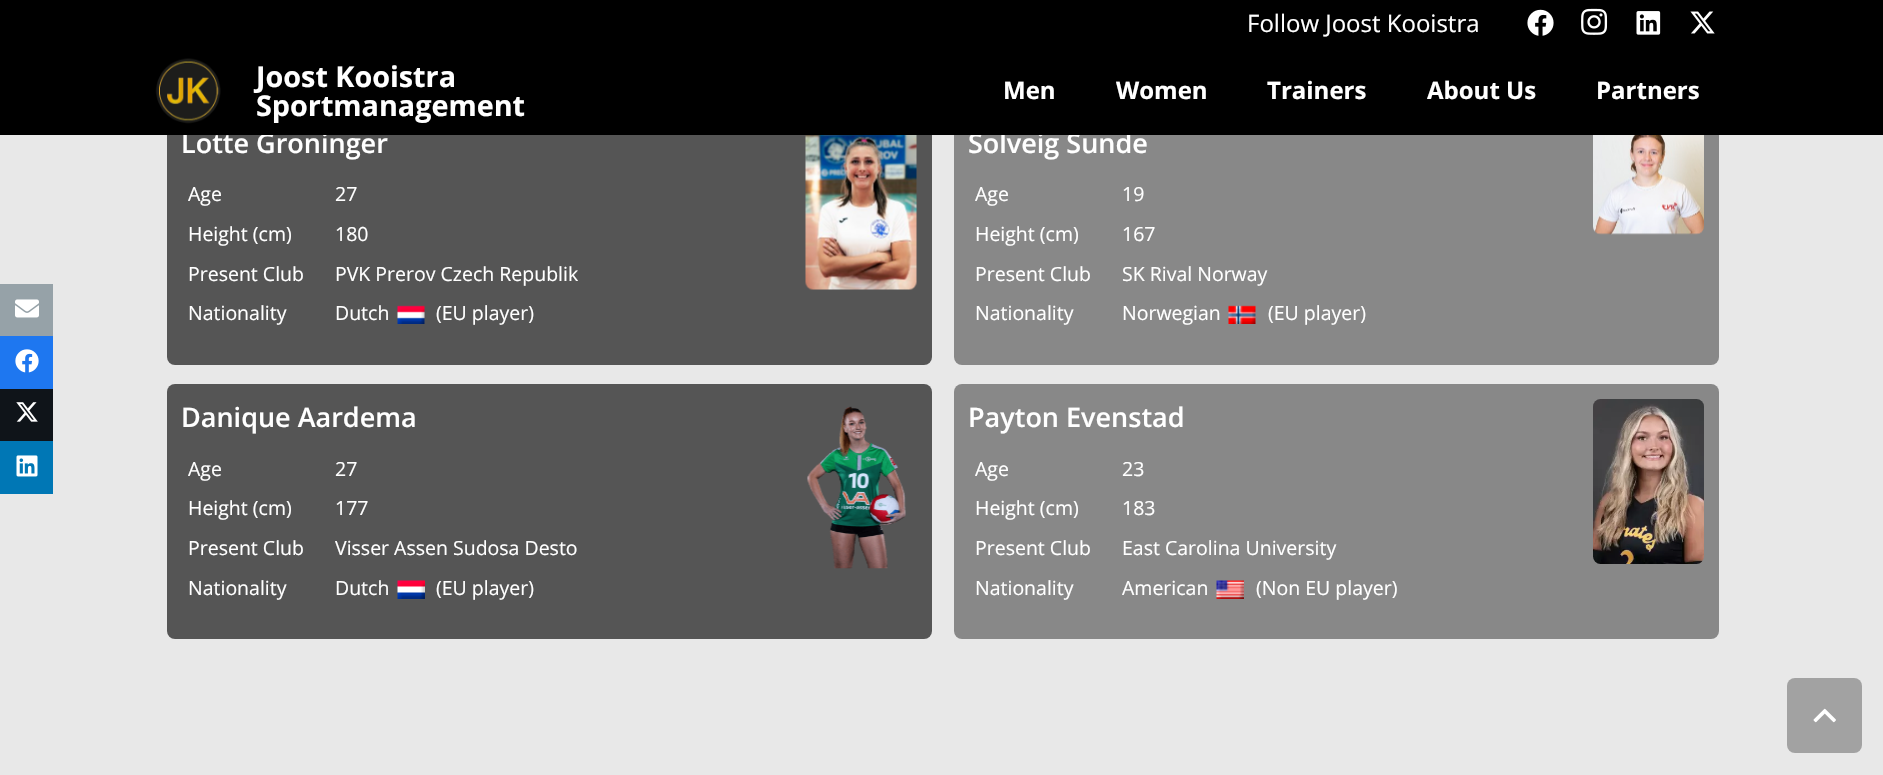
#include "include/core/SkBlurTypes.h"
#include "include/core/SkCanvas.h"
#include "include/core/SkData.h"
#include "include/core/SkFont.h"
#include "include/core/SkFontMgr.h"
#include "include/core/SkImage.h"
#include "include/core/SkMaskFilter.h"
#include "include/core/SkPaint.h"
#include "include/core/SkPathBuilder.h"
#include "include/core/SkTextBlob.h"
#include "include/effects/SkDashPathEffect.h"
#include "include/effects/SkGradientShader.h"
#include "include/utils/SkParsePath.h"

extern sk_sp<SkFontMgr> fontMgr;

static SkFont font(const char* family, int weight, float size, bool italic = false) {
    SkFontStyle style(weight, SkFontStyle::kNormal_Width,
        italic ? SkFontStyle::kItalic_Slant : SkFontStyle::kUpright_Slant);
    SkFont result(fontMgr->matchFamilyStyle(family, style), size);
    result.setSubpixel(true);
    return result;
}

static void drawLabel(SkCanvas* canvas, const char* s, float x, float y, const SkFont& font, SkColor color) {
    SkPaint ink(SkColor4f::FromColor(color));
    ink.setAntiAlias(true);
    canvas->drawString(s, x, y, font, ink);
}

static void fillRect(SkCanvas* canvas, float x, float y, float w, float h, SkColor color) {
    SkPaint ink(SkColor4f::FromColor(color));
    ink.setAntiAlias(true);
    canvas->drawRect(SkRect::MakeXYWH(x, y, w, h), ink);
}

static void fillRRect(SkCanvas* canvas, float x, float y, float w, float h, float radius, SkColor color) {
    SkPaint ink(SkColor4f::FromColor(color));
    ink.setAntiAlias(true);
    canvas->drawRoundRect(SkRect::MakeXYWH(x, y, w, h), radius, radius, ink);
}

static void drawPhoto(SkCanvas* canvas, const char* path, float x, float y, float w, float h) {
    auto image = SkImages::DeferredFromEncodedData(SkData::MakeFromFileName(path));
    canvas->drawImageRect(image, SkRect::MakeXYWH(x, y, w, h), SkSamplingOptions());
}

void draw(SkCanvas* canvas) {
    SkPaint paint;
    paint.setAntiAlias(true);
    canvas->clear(0xFFE8E8E8);
    fillRRect(canvas, 167, 110, 765, 255, 8, 0xFF555555);
    SkFont font1 = font("Open Sans", 600, 27);
    drawLabel(canvas, "Lotte Groninger", 181, 153, font1, 0xFFFFFFFF);
    fillRRect(canvas, 954, 110, 765, 255, 8, 0xFF888888);
    drawLabel(canvas, "Solveig Sunde", 968, 153, font1, 0xFFFFFFFF);
    fillRect(canvas, 0, 0, 1883, 135, 0xFF000000);
    SkFont font2 = font("Open Sans", 400, 24);
    drawLabel(canvas, "Follow Joost Kooistra", 1247, 32, font2, 0xFFFFFFFF);
    drawPhoto(canvas, "assets/img1.png", 1527, 9, 27, 27);
    drawPhoto(canvas, "assets/img2.png", 1581, 8, 27, 27);
    drawPhoto(canvas, "assets/img3.png", 1636, 11, 25, 24);
    drawPhoto(canvas, "assets/img4.png", 1690, 11, 25, 23);
    drawPhoto(canvas, "assets/img5.png", 155, 58, 66, 66);
    SkFont font3 = font("Open Sans", 700, 28.75f);
    drawLabel(canvas, "Joost Kooistra", 256, 87, font3, 0xFFFFFFFF);
    drawLabel(canvas, "Sportmanagement", 256, 116, font3, 0xFFFFFFFF);
    SkFont font4 = font("Open Sans", 700, 24);
    drawLabel(canvas, "Men", 1003, 99, font4, 0xFFFFFFFF);
    drawLabel(canvas, "Women", 1116, 99, font4, 0xFFFFFFFF);
    drawLabel(canvas, "Trainers", 1267, 99, font4, 0xFFFFFFFF);
    drawLabel(canvas, "About Us", 1427, 99, font4, 0xFFFFFFFF);
    drawLabel(canvas, "Partners", 1596, 99, font4, 0xFFFFFFFF);
    fillRect(canvas, 0, 284, 53, 52, 0xFF96A2A8);
    drawPhoto(canvas, "assets/img6.png", 15, 299, 24, 19);
    fillRect(canvas, 0, 336, 53, 53, 0xFF1E77F0);
    drawPhoto(canvas, "assets/img7.png", 15, 349, 24, 24);
    fillRect(canvas, 0, 389, 53, 52, 0xFF0F1419);
    drawPhoto(canvas, "assets/img8.png", 16, 402, 22, 20);
    fillRect(canvas, 0, 441, 53, 53, 0xFF0077B5);
    drawPhoto(canvas, "assets/img9.png", 16, 455, 22, 22);
    drawPhoto(canvas, "assets/img10.png", 805, 135, 112, 155);
    SkFont font5 = font("Open Sans", 400, 19.5f);
    drawLabel(canvas, "Age", 188, 201, font5, 0xFFFFFFFF);
    drawLabel(canvas, "27", 335, 201, font5, 0xFFFFFFFF);
    drawLabel(canvas, "Height (cm)", 188, 241, font5, 0xFFFFFFFF);
    drawLabel(canvas, "180", 335, 241, font5, 0xFFFFFFFF);
    drawLabel(canvas, "Present Club", 188, 281, font5, 0xFFFFFFFF);
    drawLabel(canvas, "PVK Prerov Czech Republik", 335, 281, font5, 0xFFFFFFFF);
    drawLabel(canvas, "Nationality", 188, 320, font5, 0xFFFFFFFF);
    drawLabel(canvas, "Dutch", 335, 320, font5, 0xFFFFFFFF);
    drawPhoto(canvas, "assets/img11.png", 397, 305, 28, 19);
    drawLabel(canvas, "(EU player)", 436, 320, font5, 0xFFFFFFFF);
    drawPhoto(canvas, "assets/img12.png", 1593, 135, 111, 100);
    drawLabel(canvas, "Age", 975, 201, font5, 0xFFFFFFFF);
    drawLabel(canvas, "19", 1122, 201, font5, 0xFFFFFFFF);
    drawLabel(canvas, "Height (cm)", 975, 241, font5, 0xFFFFFFFF);
    drawLabel(canvas, "167", 1122, 241, font5, 0xFFFFFFFF);
    drawLabel(canvas, "Present Club", 975, 281, font5, 0xFFFFFFFF);
    drawLabel(canvas, "SK Rival Norway", 1122, 281, font5, 0xFFFFFFFF);
    drawLabel(canvas, "Nationality", 975, 320, font5, 0xFFFFFFFF);
    drawLabel(canvas, "Norwegian", 1122, 320, font5, 0xFFFFFFFF);
    drawPhoto(canvas, "assets/img13.png", 1228, 305, 28, 19);
    drawLabel(canvas, "(EU player)", 1268, 320, font5, 0xFFFFFFFF);
    fillRRect(canvas, 167, 384, 765, 255, 8, 0xFF555555);
    drawLabel(canvas, "Danique Aardema", 181, 427, font1, 0xFFFFFFFF);
    drawPhoto(canvas, "assets/img14.png", 807, 406, 99, 163);
    drawLabel(canvas, "Age", 188, 476, font5, 0xFFFFFFFF);
    drawLabel(canvas, "27", 335, 476, font5, 0xFFFFFFFF);
    drawLabel(canvas, "Height (cm)", 188, 515, font5, 0xFFFFFFFF);
    drawLabel(canvas, "177", 335, 515, font5, 0xFFFFFFFF);
    drawLabel(canvas, "Present Club", 188, 555, font5, 0xFFFFFFFF);
    drawLabel(canvas, "Visser Assen Sudosa Desto", 335, 555, font5, 0xFFFFFFFF);
    drawLabel(canvas, "Nationality", 188, 595, font5, 0xFFFFFFFF);
    drawLabel(canvas, "Dutch", 335, 595, font5, 0xFFFFFFFF);
    drawPhoto(canvas, "assets/img15.png", 397, 580, 28, 19);
    drawLabel(canvas, "(EU player)", 436, 595, font5, 0xFFFFFFFF);
    fillRRect(canvas, 954, 384, 765, 255, 8, 0xFF888888);
    drawLabel(canvas, "Payton Evenstad", 968, 427, font1, 0xFFFFFFFF);
    drawPhoto(canvas, "assets/img16.png", 1593, 399, 111, 165);
    drawLabel(canvas, "Age", 975, 476, font5, 0xFFFFFFFF);
    drawLabel(canvas, "23", 1122, 476, font5, 0xFFFFFFFF);
    drawLabel(canvas, "Height (cm)", 975, 515, font5, 0xFFFFFFFF);
    drawLabel(canvas, "183", 1122, 515, font5, 0xFFFFFFFF);
    drawLabel(canvas, "Present Club", 975, 555, font5, 0xFFFFFFFF);
    drawLabel(canvas, "East Carolina University", 1122, 555, font5, 0xFFFFFFFF);
    drawLabel(canvas, "Nationality", 975, 595, font5, 0xFFFFFFFF);
    drawLabel(canvas, "American", 1122, 595, font5, 0xFFFFFFFF);
    drawPhoto(canvas, "assets/img17.png", 1216, 580, 28, 19);
    drawLabel(canvas, "(Non EU player)", 1256, 595, font5, 0xFFFFFFFF);
    fillRRect(canvas, 1787, 678, 75, 75, 8, 0xFFA2A2A2);
    drawPhoto(canvas, "assets/img18.png", 1813, 708, 23, 15);
}
